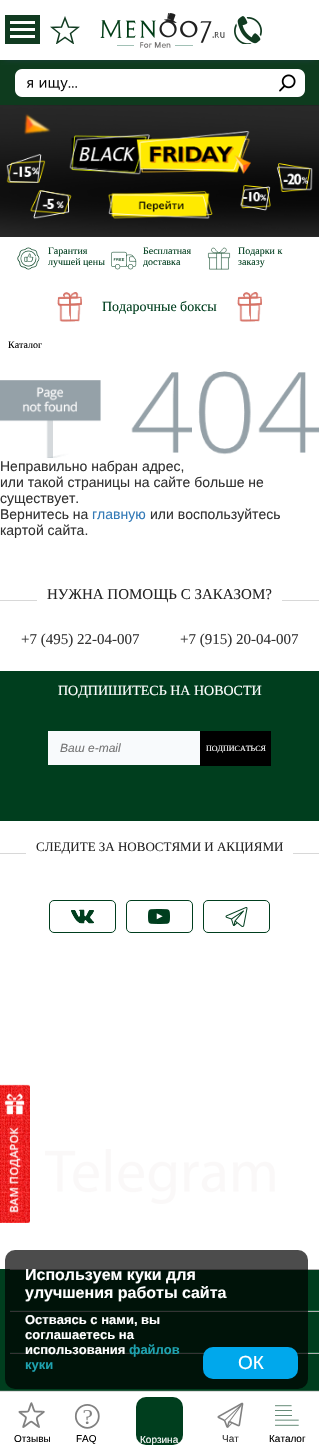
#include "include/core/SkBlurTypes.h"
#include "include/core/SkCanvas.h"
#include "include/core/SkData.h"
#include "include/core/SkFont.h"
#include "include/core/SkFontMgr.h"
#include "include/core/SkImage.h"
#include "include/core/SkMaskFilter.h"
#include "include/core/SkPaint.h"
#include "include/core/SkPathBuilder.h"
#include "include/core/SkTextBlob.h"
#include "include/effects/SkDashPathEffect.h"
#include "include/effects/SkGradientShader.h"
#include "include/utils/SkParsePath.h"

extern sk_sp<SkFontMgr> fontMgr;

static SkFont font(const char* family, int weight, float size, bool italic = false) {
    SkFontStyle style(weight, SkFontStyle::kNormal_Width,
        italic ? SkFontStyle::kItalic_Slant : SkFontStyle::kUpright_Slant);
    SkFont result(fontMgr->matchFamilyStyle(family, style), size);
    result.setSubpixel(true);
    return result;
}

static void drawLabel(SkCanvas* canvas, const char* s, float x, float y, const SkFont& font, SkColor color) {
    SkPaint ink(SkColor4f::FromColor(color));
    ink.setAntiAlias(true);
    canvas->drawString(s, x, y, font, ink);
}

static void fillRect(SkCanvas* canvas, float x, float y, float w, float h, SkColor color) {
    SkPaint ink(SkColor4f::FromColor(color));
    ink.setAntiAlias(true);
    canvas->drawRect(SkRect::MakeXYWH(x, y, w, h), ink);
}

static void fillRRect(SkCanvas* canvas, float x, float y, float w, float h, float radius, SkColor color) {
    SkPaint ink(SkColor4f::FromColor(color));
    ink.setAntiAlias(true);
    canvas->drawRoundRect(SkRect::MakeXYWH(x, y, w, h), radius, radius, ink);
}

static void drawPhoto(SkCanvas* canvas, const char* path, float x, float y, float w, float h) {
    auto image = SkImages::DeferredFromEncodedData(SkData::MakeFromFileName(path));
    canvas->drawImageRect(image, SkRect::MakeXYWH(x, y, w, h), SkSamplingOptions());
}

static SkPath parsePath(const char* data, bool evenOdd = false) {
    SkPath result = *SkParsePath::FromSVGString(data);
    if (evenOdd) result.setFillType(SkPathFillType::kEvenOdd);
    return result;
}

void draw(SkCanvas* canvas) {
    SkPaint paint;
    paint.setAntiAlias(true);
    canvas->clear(0xFFFFFFFF);
    fillRect(canvas, 0, 60, 319, 45, 0xFF0E3B1E);
    canvas->save();
    canvas->clipRect(SkRect::MakeXYWH(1, 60, 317, 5));
    paint.setColor(0x99223C50);
    paint.setMaskFilter(SkMaskFilter::MakeBlur(kNormal_SkBlurStyle, 2.5f));
    canvas->drawRect(SkRect::MakeXYWH(5, 10, 309, 50), paint);
    paint.setMaskFilter(nullptr);
    canvas->restore();
    fillRect(canvas, 5, 15, 35, 29, 0xFF113B21);
    fillRect(canvas, 10, 21, 25, 3, 0xFFFFFFFF);
    fillRect(canvas, 10, 28, 25, 3, 0xFFFFFFFF);
    fillRect(canvas, 10, 35, 25, 3, 0xFFFFFFFF);
    canvas->save();
    canvas->clipRect(SkRect::MakeXYWH(50, 16, 30, 28));
    paint.setStroke(true);
    paint.setStrokeWidth(1.5f);
    paint.setColor(0xFF113B21);
    canvas->drawPath(parsePath("M65 18L68.5 27L78 27.5L70.5 33.5L73 43L65 37.5L57 43L59.5 33.5L52 27.5L61.5 27Z"), paint);
    canvas->restore();
    drawPhoto(canvas, "assets/img1.png", 100, 13, 125, 35);
    drawPhoto(canvas, "assets/img2.png", 234, 16, 28, 28);
    drawPhoto(canvas, "assets/img3.png", 15, 69, 290, 28);
    drawPhoto(canvas, "assets/img4.png", 0, 105, 319, 132);
    drawPhoto(canvas, "assets/img5.png", 6, 131, 307, 88);
    drawPhoto(canvas, "assets/img6.png", 17, 247, 23, 23);
    SkFont font1 = font("Liberation Serif", 400, 10);
    drawLabel(canvas, "Гарантия", 48, 254, font1, 0xFF003E1E);
    drawLabel(canvas, "лучшей цены", 48, 265, font1, 0xFF003E1E);
    drawPhoto(canvas, "assets/img7.png", 111, 251, 26, 19);
    drawLabel(canvas, "Бесплатная", 143, 254, font1, 0xFF003E1E);
    drawLabel(canvas, "доставка", 143, 265, font1, 0xFF003E1E);
    drawPhoto(canvas, "assets/img8.png", 207, 247, 24, 23);
    drawLabel(canvas, "Подарки к", 238, 254, font1, 0xFF003E1E);
    drawLabel(canvas, "заказу", 238, 265, font1, 0xFF003E1E);
    drawPhoto(canvas, "assets/img9.png", 57, 292, 25, 30);
    SkFont font2 = font("Liberation Serif", 400, 14);
    drawLabel(canvas, "Подарочные боксы", 102, 311, font2, 0xFF003E1E);
    drawPhoto(canvas, "assets/img9.png", 237, 292, 25, 30);
    drawLabel(canvas, "Каталог", 8, 348, font1, 0xFF000000);
    drawPhoto(canvas, "assets/img10.png", 0, 371, 319, 87);
    SkFont font3 = font("Liberation Sans", 400, 14);
    drawLabel(canvas, "Неправильно набран адрес,", 0, 471, font3, 0xFF333333);
    drawLabel(canvas, "или такой страницы на сайте больше не", 0, 487, font3, 0xFF333333);
    drawLabel(canvas, "существует.", 0, 503, font3, 0xFF333333);
    drawLabel(canvas, "Вернитесь на", 0, 519, font3, 0xFF333333);
    drawLabel(canvas, "главную", 92, 519, font3, 0xFF337AB7);
    drawLabel(canvas, "или воспользуйтесь", 150, 519, font3, 0xFF333333);
    drawLabel(canvas, "картой сайта.", 0, 535, font3, 0xFF333333);
    fillRect(canvas, 0, 600, 319, 1, 0xFFD8D8D8);
    fillRect(canvas, 37, 600, 245, 1, 0xFFFFFFFF);
    SkFont font4 = font("Liberation Serif", 400, 15);
    drawLabel(canvas, "НУЖНА ПОМОЩЬ С ЗАКАЗОМ?", 47, 599, font4, 0xFF252525);
    drawLabel(canvas, "+7 (495) 22-04-007", 21, 644, font4, 0xFF333333);
    drawLabel(canvas, "+7 (915) 20-04-007", 180, 644, font4, 0xFF333333);
    fillRect(canvas, 0, 671, 319, 150, 0xFF003E1E);
    drawLabel(canvas, "ПОДПИШИТЕСЬ НА НОВОСТИ", 58, 695, font2, 0xFFFFFFFF);
    fillRect(canvas, 48, 731, 152, 34, 0xFFF8FAFC);
    SkFont font5 = font("Liberation Sans", 400, 12, true);
    drawLabel(canvas, "Ваш e-mail", 60, 752, font5, 0xFF757575);
    fillRect(canvas, 200, 731, 71, 35, 0xFF000000);
    SkFont font6 = font("Liberation Serif", 400, 8);
    drawLabel(canvas, "ПОДПИСАТЬСЯ", 206, 751, font6, 0xFFFFFFFF);
    fillRect(canvas, 0, 853, 319, 1, 0xFFD8D8D8);
    fillRect(canvas, 26, 853, 267, 1, 0xFFFFFFFF);
    SkFont font7 = font("Liberation Serif", 400, 13);
    drawLabel(canvas, "СЛЕДИТЕ ЗА НОВОСТЯМИ И АКЦИЯМИ", 36, 851, font7, 0xFF252525);
    paint.setStrokeWidth(1);
    paint.setColor(0xFF003E1E);
    canvas->drawRoundRect(SkRect::MakeXYWH(49.5f, 900.5f, 66, 32), 4.5f, 4.5f, paint);
    drawPhoto(canvas, "assets/img11.png", 71, 909, 23, 15);
    canvas->drawRoundRect(SkRect::MakeXYWH(126.5f, 900.5f, 66, 32), 4.5f, 4.5f, paint);
    drawPhoto(canvas, "assets/img12.png", 148, 909, 22, 15);
    canvas->drawRoundRect(SkRect::MakeXYWH(203.5f, 900.5f, 66, 32), 4.5f, 4.5f, paint);
    drawPhoto(canvas, "assets/img13.png", 225, 907, 23, 20);
    drawPhoto(canvas, "assets/img14.png", 0, 1084, 30, 139);
    drawPhoto(canvas, "assets/img15.png", 45, 1149, 230, 55);
    fillRect(canvas, 0, 1269, 319, 123, 0xFF003E1E);
    fillRect(canvas, 10, 1269, 309, 1, 0xFFAFAFAF);
    fillRect(canvas, 10, 1310, 309, 1, 0xFF13653A);
    fillRect(canvas, 10, 1311, 309, 1, 0xFFAFAFAF);
    fillRect(canvas, 10, 1352, 309, 1, 0xFF13653A);
    fillRect(canvas, 10, 1353, 309, 1, 0xFFAFAFAF);
    paint.setStroke(false);
    paint.setColor(0xFFDDDDDD);
    paint.setMaskFilter(SkMaskFilter::MakeBlur(kNormal_SkBlurStyle, 0.5f));
    canvas->drawRect(SkRect::MakeXYWH(-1, 1391, 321, 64), paint);
    paint.setMaskFilter(nullptr);
    fillRRect(canvas, 5, 1250, 303, 139, 10, 0xB3000000);
    SkFont font8 = font("Liberation Sans", 700, 16);
    drawLabel(canvas, "Используем куки для", 25, 1280, font8, 0xFFFFFFFF);
    drawLabel(canvas, "улучшения работы сайта", 25, 1298, font8, 0xFFFFFFFF);
    SkFont font9 = font("Liberation Sans", 700, 13);
    drawLabel(canvas, "Остваясь с нами, вы", 25, 1324, font9, 0xFFFFFFFF);
    drawLabel(canvas, "соглашаетесь на", 25, 1339, font9, 0xFFFFFFFF);
    drawLabel(canvas, "использования", 25, 1354, font9, 0xFFFFFFFF);
    drawLabel(canvas, "файлов", 129, 1354, font9, 0xFF1EA3B0);
    drawLabel(canvas, "куки", 25, 1369, font9, 0xFF1EA3B0);
    fillRRect(canvas, 203, 1347, 95, 32, 10, 0xFF00A8EC);
    SkFont font10 = font("Liberation Sans", 400, 19);
    drawLabel(canvas, "ОК", 238, 1369, font10, 0xFFFFFFFF);
    fillRect(canvas, 0, 1392, 319, 61, 0xFFFFFFFF);
    drawPhoto(canvas, "assets/img16.png", 18, 1402, 27, 26);
    SkFont font11 = font("Liberation Sans", 400, 10);
    drawLabel(canvas, "Отзывы", 14, 1442, font11, 0xFF000000);
    drawPhoto(canvas, "assets/img17.png", 74, 1404, 26, 25);
    drawLabel(canvas, "FAQ", 76, 1442, font11, 0xFF000000);
    fillRRect(canvas, 136, 1397, 47, 48, 10, 0xFF003E1E);
    drawLabel(canvas, "Корзина", 140, 1443, font11, 0xFFFFFFFF);
    drawPhoto(canvas, "assets/img18.png", 217, 1402, 27, 26);
    drawLabel(canvas, "Чат", 222, 1442, font11, 0xFF333333);
    drawPhoto(canvas, "assets/img19.png", 275, 1405, 24, 21);
    drawLabel(canvas, "Каталог", 269, 1442, font11, 0xFF000000);
}
